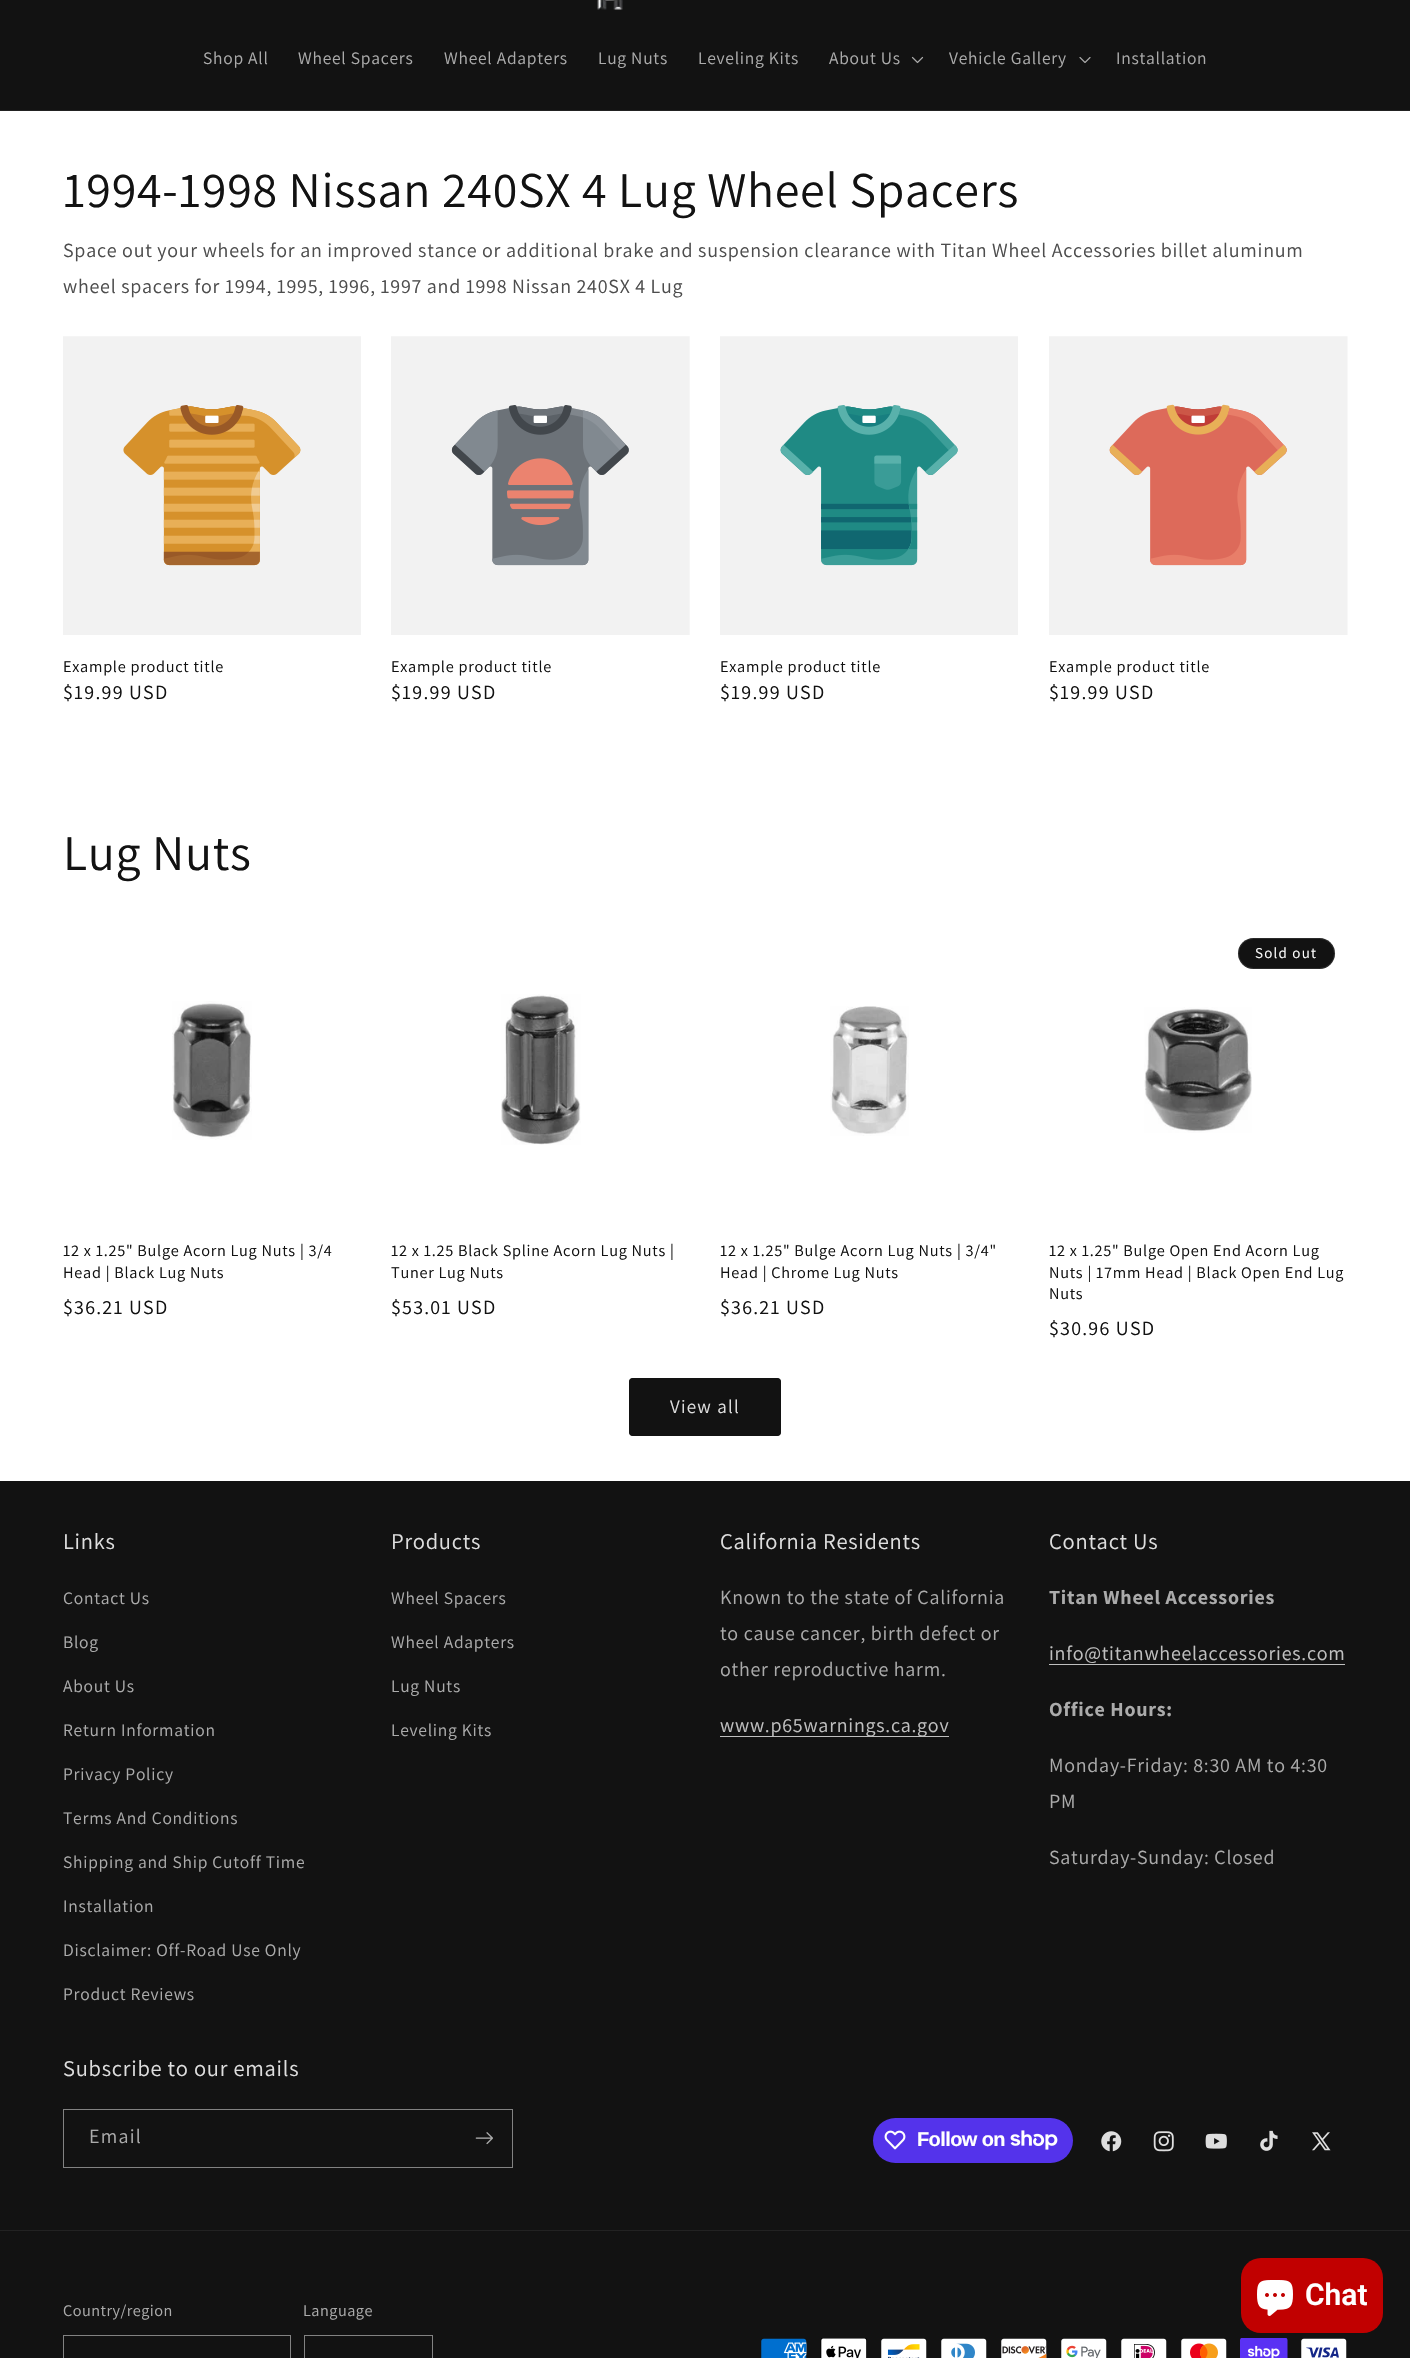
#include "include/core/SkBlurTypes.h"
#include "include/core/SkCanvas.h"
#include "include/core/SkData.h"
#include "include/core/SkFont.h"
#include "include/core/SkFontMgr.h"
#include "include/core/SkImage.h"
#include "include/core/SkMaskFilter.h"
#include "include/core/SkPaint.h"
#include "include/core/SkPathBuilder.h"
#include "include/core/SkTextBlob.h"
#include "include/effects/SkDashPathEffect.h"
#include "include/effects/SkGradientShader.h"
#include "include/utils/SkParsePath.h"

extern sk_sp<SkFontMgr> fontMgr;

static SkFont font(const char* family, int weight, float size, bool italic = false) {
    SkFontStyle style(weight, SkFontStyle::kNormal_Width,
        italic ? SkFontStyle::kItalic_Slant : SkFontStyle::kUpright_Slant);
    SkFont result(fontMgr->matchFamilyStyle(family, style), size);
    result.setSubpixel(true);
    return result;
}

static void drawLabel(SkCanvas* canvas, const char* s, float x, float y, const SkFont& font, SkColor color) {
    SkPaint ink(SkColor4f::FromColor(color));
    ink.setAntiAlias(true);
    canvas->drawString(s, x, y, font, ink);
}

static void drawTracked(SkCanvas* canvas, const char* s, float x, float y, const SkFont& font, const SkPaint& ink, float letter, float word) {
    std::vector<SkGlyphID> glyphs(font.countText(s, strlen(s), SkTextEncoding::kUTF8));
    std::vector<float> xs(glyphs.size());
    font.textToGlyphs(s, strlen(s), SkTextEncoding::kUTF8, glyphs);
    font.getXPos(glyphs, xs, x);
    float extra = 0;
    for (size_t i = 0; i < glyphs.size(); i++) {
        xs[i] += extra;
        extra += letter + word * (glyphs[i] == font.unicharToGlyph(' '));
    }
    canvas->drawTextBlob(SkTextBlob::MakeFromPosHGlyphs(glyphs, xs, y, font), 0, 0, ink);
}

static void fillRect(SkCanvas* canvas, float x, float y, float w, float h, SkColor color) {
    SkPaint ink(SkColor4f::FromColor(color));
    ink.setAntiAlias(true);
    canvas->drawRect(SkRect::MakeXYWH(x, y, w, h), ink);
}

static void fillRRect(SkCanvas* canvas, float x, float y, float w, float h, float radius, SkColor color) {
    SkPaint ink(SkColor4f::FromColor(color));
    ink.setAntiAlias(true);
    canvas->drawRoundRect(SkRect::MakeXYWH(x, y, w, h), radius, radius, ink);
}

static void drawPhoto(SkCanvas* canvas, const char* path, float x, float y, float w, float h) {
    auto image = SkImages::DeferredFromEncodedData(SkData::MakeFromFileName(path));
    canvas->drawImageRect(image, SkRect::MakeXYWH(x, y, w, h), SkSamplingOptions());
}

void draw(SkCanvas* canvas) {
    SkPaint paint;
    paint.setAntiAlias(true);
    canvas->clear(0xFFFFFFFF);
    fillRect(canvas, 0, 0, 1410, 110, 0xFF121212);
    fillRect(canvas, 0, 110, 1410, 1, 0xFF222222);
    drawPhoto(canvas, "assets/img1.png", 597, 0, 26, 10);
    SkFont font1 = font("Assistant", 400, 17.5f);
    paint.setColor(0xFFABABAB);
    drawTracked(canvas, "Shop All", 203, 64, font1, paint, 0.75f, 0);
    drawTracked(canvas, "Wheel Spacers", 298, 64, font1, paint, 0.75f, 0);
    drawTracked(canvas, "Wheel Adapters", 444, 64, font1, paint, 0.75f, 0);
    drawTracked(canvas, "Lug Nuts", 598, 64, font1, paint, 0.75f, 0);
    drawTracked(canvas, "Leveling Kits", 698, 64, font1, paint, 0.75f, 0);
    drawTracked(canvas, "About Us", 829, 64, font1, paint, 0.75f, 0);
    drawPhoto(canvas, "assets/img2.png", 911, 56, 13, 8);
    drawTracked(canvas, "Vehicle Gallery", 949, 64, font1, paint, 0.75f, 0);
    drawPhoto(canvas, "assets/img3.png", 1079, 57, 12, 6);
    drawTracked(canvas, "Installation", 1116, 64, font1, paint, 0.75f, 0);
    SkFont font2 = font("Assistant", 400, 50);
    paint.setColor(0xFF121212);
    drawTracked(canvas, "1994-1998 Nissan 240SX 4 Lug Wheel Spacers", 63, 207, font2, paint, 0.75f, 0);
    SkFont font3 = font("Assistant", 400, 20);
    paint.setColor(0xFF4D4D4D);
    drawTracked(canvas, "Space out your wheels for an improved stance or additional brake and suspension clearance with Titan Wheel Accessories billet aluminum", 63, 257, font3, paint, 0.75f, 0);
    drawTracked(canvas, "wheel spacers for 1994, 1995, 1996, 1997 and 1998 Nissan 240SX 4 Lug", 63, 293, font3, paint, 0.75f, 0);
    drawPhoto(canvas, "assets/img4.png", 63, 336, 298, 299);
    SkFont font4 = font("Assistant", 400, 16.25f);
    paint.setColor(0xFF121212);
    drawTracked(canvas, "Example product title", 63, 672, font4, paint, 0.75f, 0);
    drawTracked(canvas, "$19.99 USD", 63, 699, font3, paint, 1.25f, 0);
    drawPhoto(canvas, "assets/img5.png", 391, 336, 299, 299);
    drawTracked(canvas, "Example product title", 391, 672, font4, paint, 0.75f, 0);
    drawTracked(canvas, "$19.99 USD", 391, 699, font3, paint, 1.25f, 0);
    drawPhoto(canvas, "assets/img6.png", 720, 336, 298, 299);
    drawTracked(canvas, "Example product title", 720, 672, font4, paint, 0.75f, 0);
    drawTracked(canvas, "$19.99 USD", 720, 699, font3, paint, 1.25f, 0);
    drawPhoto(canvas, "assets/img7.png", 1049, 336, 299, 299);
    drawTracked(canvas, "Example product title", 1049, 672, font4, paint, 0.75f, 0);
    drawTracked(canvas, "$19.99 USD", 1049, 699, font3, paint, 1.25f, 0);
    drawTracked(canvas, "Lug Nuts", 63, 870, font2, paint, 0.75f, 0);
    drawPhoto(canvas, "assets/img8.png", 172, 1001, 80, 139);
    drawTracked(canvas, "12 x 1.25\" Bulge Acorn Lug Nuts | 3/4", 63, 1256, font4, paint, 0.75f, 0);
    drawTracked(canvas, "Head | Black Lug Nuts", 63, 1278, font4, paint, 0.75f, 0);
    drawTracked(canvas, "$36.21 USD", 63, 1314, font3, paint, 1.25f, 0);
    drawPhoto(canvas, "assets/img9.png", 501, 994, 80, 151);
    drawTracked(canvas, "12 x 1.25 Black Spline Acorn Lug Nuts |", 391, 1256, font4, paint, 0.75f, 0);
    drawTracked(canvas, "Tuner Lug Nuts", 391, 1278, font4, paint, 0.75f, 0);
    drawTracked(canvas, "$53.01 USD", 391, 1314, font3, paint, 1.25f, 0);
    drawPhoto(canvas, "assets/img10.png", 830, 1006, 79, 130);
    drawTracked(canvas, "12 x 1.25\" Bulge Acorn Lug Nuts | 3/4\"", 720, 1256, font4, paint, 0.75f, 0);
    drawTracked(canvas, "Head | Chrome Lug Nuts", 720, 1278, font4, paint, 0.75f, 0);
    drawTracked(canvas, "$36.21 USD", 720, 1314, font3, paint, 1.25f, 0);
    fillRRect(canvas, 1238, 938, 97, 31, 15.5f, 0xFF121212);
    paint.setStroke(true);
    paint.setStrokeWidth(1);
    paint.setColor(0x1AFFFFFF);
    canvas->drawRoundRect(SkRect::MakeXYWH(1238.5f, 938.5f, 96, 30), 15, 15, paint);
    SkFont font5 = font("Assistant", 400, 15);
    paint.setStroke(false);
    paint.setColor(0xFFFFFFFF);
    drawTracked(canvas, "Sold out", 1255, 958, font5, paint, 1.25f, 0);
    drawPhoto(canvas, "assets/img11.png", 1144, 1007, 108, 126);
    paint.setColor(0xFF121212);
    drawTracked(canvas, "12 x 1.25\" Bulge Open End Acorn Lug", 1049, 1256, font4, paint, 0.75f, 0);
    drawTracked(canvas, "Nuts | 17mm Head | Black Open End Lug", 1049, 1278, font4, paint, 0.75f, 0);
    drawTracked(canvas, "Nuts", 1049, 1299, font4, paint, 0.75f, 0);
    drawTracked(canvas, "$30.96 USD", 1049, 1335, font3, paint, 1.25f, 0);
    fillRRect(canvas, 629, 1378, 152, 58, 4, 0xFF121212);
    paint.setStroke(true);
    canvas->drawRoundRect(SkRect::MakeXYWH(629.5f, 1378.5f, 151, 57), 3.5f, 3.5f, paint);
    SkFont font6 = font("Assistant", 400, 19);
    paint.setStroke(false);
    paint.setColor(0xFFDEDEDE);
    drawTracked(canvas, "View all", 670, 1413, font6, paint, 1.25f, 0);
    fillRect(canvas, 0, 1481, 1410, 877, 0xFF121212);
    SkFont font7 = font("Assistant", 400, 22.5f);
    drawTracked(canvas, "Links", 63, 1549, font7, paint, 0.75f, 0);
    paint.setColor(0xFFABABAB);
    drawTracked(canvas, "Contact Us", 63, 1604, font1, paint, 0.75f, 0);
    drawTracked(canvas, "Blog", 63, 1648, font1, paint, 0.75f, 0);
    drawTracked(canvas, "About Us", 63, 1692, font1, paint, 0.75f, 0);
    drawTracked(canvas, "Return Information", 63, 1736, font1, paint, 0.75f, 0);
    drawTracked(canvas, "Privacy Policy", 63, 1780, font1, paint, 0.75f, 0);
    drawTracked(canvas, "Terms And Conditions", 63, 1824, font1, paint, 0.75f, 0);
    drawTracked(canvas, "Shipping and Ship Cutoff Time", 63, 1868, font1, paint, 0.75f, 0);
    drawTracked(canvas, "Installation", 63, 1912, font1, paint, 0.75f, 0);
    drawTracked(canvas, "Disclaimer: Off-Road Use Only", 63, 1956, font1, paint, 0.75f, 0);
    drawTracked(canvas, "Product Reviews", 63, 2000, font1, paint, 0.75f, 0);
    paint.setColor(0xFFDEDEDE);
    drawTracked(canvas, "Products", 391, 1549, font7, paint, 0.75f, 0);
    paint.setColor(0xFFABABAB);
    drawTracked(canvas, "Wheel Spacers", 391, 1604, font1, paint, 0.75f, 0);
    drawTracked(canvas, "Wheel Adapters", 391, 1648, font1, paint, 0.75f, 0);
    drawTracked(canvas, "Lug Nuts", 391, 1692, font1, paint, 0.75f, 0);
    drawTracked(canvas, "Leveling Kits", 391, 1736, font1, paint, 0.75f, 0);
    paint.setColor(0xFFDEDEDE);
    drawTracked(canvas, "California Residents", 720, 1549, font7, paint, 0.75f, 0);
    paint.setColor(0xFFABABAB);
    drawTracked(canvas, "Known to the state of California", 720, 1604, font3, paint, 0.75f, 0);
    drawTracked(canvas, "to cause cancer, birth defect or", 720, 1640, font3, paint, 0.75f, 0);
    drawTracked(canvas, "other reproductive harm.", 720, 1676, font3, paint, 0.75f, 0);
    fillRect(canvas, 720, 1736, 229, 1, 0xFFBFBFBF);
    paint.setColor(0xFFC0C0C0);
    drawTracked(canvas, "www.p65warnings.ca.gov", 720, 1732, font3, paint, 0.75f, 0);
    paint.setColor(0xFFDEDEDE);
    drawTracked(canvas, "Contact Us", 1049, 1549, font7, paint, 0.75f, 0);
    SkFont font8 = font("Assistant", 700, 20);
    paint.setColor(0xFFABABAB);
    drawTracked(canvas, "Titan Wheel Accessories", 1049, 1604, font8, paint, 0.75f, 0);
    paint.setColor(0xFFC0C0C0);
    drawTracked(canvas, "info@titanwheelaccessories.com", 1049, 1660, font3, paint, 0.75f, 0);
    fillRect(canvas, 1049, 1664, 296, 1, 0xFFBFBFBF);
    paint.setColor(0xFFABABAB);
    drawTracked(canvas, "Office Hours:", 1049, 1716, font8, paint, 0.75f, 0);
    drawTracked(canvas, "Monday-Friday: 8:30 AM to 4:30", 1049, 1772, font3, paint, 0.75f, 0);
    drawTracked(canvas, "PM", 1049, 1808, font3, paint, 0.75f, 0);
    drawTracked(canvas, "Saturday-Sunday: Closed", 1049, 1864, font3, paint, 0.75f, 0);
    paint.setColor(0xFFDEDEDE);
    drawTracked(canvas, "Subscribe to our emails", 63, 2076, font7, paint, 0.75f, 0);
    paint.setStroke(true);
    paint.setColor(0xFF828282);
    canvas->drawRect(SkRect::MakeXYWH(63.5f, 2109.5f, 449, 58), paint);
    paint.setStroke(false);
    paint.setColor(0xFFABABAB);
    drawTracked(canvas, "Email", 89, 2143, font3, paint, 1.25f, 0);
    drawPhoto(canvas, "assets/img12.png", 475, 2132, 18, 13);
    fillRRect(canvas, 873, 2118, 200, 45, 22.5f, 0xFF5433EB);
    drawPhoto(canvas, "assets/img13.png", 884, 2130, 22, 20);
    SkFont font9 = font("Liberation Sans", 700, 20);
    paint.setColor(0xFFFFFFFF);
    drawTracked(canvas, "Follow on", 917, 2146, font9, paint, -0.6f, 0);
    drawPhoto(canvas, "assets/img14.png", 1010, 2130, 48, 20);
    drawPhoto(canvas, "assets/img15.png", 1101, 2131, 21, 21);
    drawPhoto(canvas, "assets/img16.png", 1153, 2131, 21, 21);
    drawPhoto(canvas, "assets/img17.png", 1205, 2133, 22, 16);
    drawPhoto(canvas, "assets/img18.png", 1260, 2130, 18, 21);
    drawPhoto(canvas, "assets/img19.png", 1312, 2132, 19, 19);
    fillRect(canvas, 0, 2230, 1410, 1, 0xFF222222);
    paint.setColor(0xFFABABAB);
    drawTracked(canvas, "Country/region", 63, 2316, font4, paint, 0.5f, 0);
    paint.setStroke(true);
    paint.setColor(0xFF828282);
    canvas->drawRect(SkRect::MakeXYWH(63.5f, 2335.5f, 227, 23), paint);
    paint.setStroke(false);
    paint.setColor(0xFFABABAB);
    drawTracked(canvas, "Language", 303, 2316, font4, paint, 0.5f, 0);
    paint.setStroke(true);
    paint.setColor(0xFF828282);
    canvas->drawRect(SkRect::MakeXYWH(304.5f, 2335.5f, 128, 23), paint);
    drawPhoto(canvas, "assets/img20.png", 761, 2338, 46, 20);
    drawPhoto(canvas, "assets/img21.png", 820, 2338, 47, 20);
    drawPhoto(canvas, "assets/img22.png", 881, 2338, 46, 20);
    drawPhoto(canvas, "assets/img23.png", 941, 2338, 46, 20);
    drawPhoto(canvas, "assets/img24.png", 1001, 2338, 46, 20);
    drawPhoto(canvas, "assets/img25.png", 1061, 2338, 46, 20);
    drawPhoto(canvas, "assets/img26.png", 1121, 2338, 46, 20);
    drawPhoto(canvas, "assets/img27.png", 1181, 2338, 46, 20);
    drawPhoto(canvas, "assets/img28.png", 1240, 2338, 48, 20);
    drawPhoto(canvas, "assets/img29.png", 1301, 2338, 46, 20);
    fillRRect(canvas, 1241, 2258, 142, 75, 20, 0xFFC10000);
    drawPhoto(canvas, "assets/img30.png", 1257, 2280, 36, 36);
    SkFont font10 = font("Roboto", 600, 30);
    drawLabel(canvas, "Chat", 1305, 2305, font10, 0xFFFFFFFF);
}
